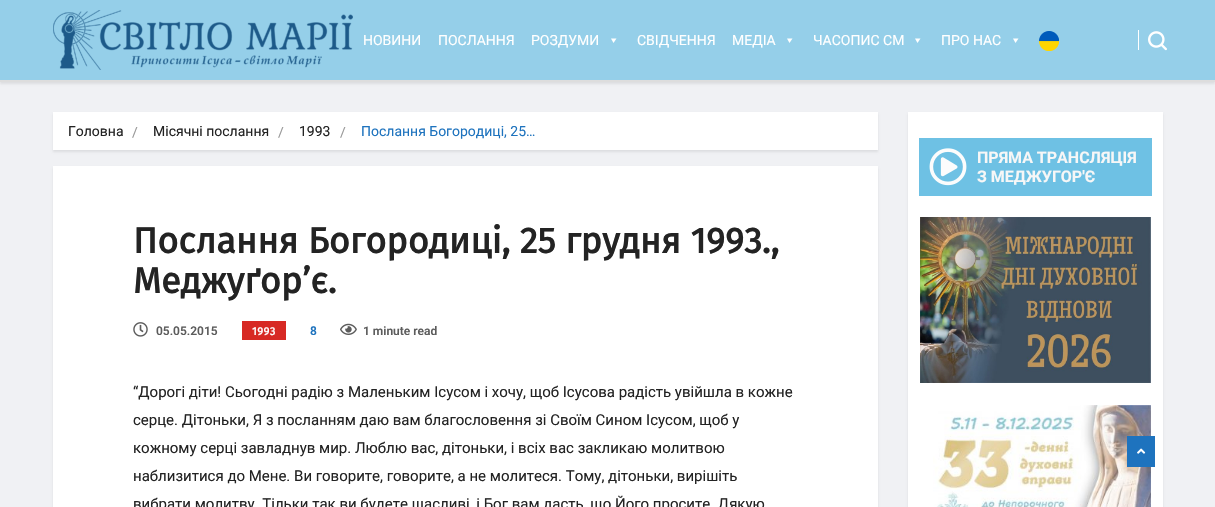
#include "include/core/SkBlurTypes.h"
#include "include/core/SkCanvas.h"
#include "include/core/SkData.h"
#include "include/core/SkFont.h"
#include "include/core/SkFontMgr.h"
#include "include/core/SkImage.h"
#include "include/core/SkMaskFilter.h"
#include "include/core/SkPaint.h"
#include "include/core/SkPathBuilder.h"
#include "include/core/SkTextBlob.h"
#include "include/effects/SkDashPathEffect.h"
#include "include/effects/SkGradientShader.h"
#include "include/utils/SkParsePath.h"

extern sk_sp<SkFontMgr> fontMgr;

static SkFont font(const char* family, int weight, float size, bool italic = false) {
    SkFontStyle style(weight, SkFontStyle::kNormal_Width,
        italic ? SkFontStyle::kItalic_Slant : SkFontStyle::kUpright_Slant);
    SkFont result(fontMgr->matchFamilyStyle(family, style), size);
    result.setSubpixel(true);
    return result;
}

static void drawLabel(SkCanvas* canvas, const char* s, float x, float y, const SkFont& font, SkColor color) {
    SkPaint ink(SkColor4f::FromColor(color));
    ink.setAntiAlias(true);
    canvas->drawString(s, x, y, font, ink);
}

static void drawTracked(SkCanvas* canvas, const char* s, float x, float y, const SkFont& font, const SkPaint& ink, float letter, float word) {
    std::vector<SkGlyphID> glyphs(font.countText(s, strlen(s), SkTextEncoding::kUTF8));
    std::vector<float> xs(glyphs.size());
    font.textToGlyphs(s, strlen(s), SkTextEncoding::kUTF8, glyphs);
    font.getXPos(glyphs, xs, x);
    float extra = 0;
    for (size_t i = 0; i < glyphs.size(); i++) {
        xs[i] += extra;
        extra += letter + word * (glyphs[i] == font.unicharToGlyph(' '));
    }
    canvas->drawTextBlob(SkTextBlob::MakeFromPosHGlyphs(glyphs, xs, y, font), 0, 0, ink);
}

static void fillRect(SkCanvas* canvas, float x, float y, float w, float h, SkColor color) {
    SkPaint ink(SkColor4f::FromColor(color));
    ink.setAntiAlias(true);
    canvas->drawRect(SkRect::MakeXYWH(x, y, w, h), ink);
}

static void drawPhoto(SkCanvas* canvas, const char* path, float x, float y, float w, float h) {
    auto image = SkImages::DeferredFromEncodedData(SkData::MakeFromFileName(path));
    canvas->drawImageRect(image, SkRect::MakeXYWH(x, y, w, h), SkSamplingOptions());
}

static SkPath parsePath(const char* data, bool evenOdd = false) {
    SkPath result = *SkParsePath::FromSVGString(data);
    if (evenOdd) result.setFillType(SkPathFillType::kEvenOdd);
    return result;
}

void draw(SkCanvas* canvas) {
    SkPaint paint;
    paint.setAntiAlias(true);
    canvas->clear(0xFFF0F1F4);
    paint.setColor(0x14000000);
    paint.setMaskFilter(SkMaskFilter::MakeBlur(kNormal_SkBlurStyle, 1));
    canvas->drawRect(SkRect::MakeXYWH(0, 2, 1215, 82), paint);
    paint.setMaskFilter(nullptr);
    fillRect(canvas, 0, 0, 1215, 80, 0xFF95CFE9);
    fillRect(canvas, 0, 80, 1215, 2, 0xFFDDDDDD);
    drawPhoto(canvas, "assets/img1.png", 53, 10, 300, 60);
    SkFont font1 = font("Roboto", 400, 14);
    drawLabel(canvas, "НОВИНИ", 363, 45, font1, 0xFFFFFFFF);
    drawLabel(canvas, "ПОСЛАННЯ", 438, 45, font1, 0xFFFFFFFF);
    drawLabel(canvas, "РОЗДУМИ", 531, 45, font1, 0xFFFFFFFF);
    paint.setColor(0xFFFFFFFF);
    canvas->drawPath(parsePath("M616.5 38.5L613.5 43L611 38.5Z"), paint);
    drawLabel(canvas, "СВІДЧЕННЯ", 637, 45, font1, 0xFFFFFFFF);
    drawLabel(canvas, "МЕДІА", 732, 45, font1, 0xFFFFFFFF);
    canvas->drawPath(parsePath("M792.5 38.5L789.5 43L787 38.5Z"), paint);
    drawLabel(canvas, "ЧАСОПИС СМ", 813, 45, font1, 0xFFFFFFFF);
    canvas->drawPath(parsePath("M920.5 38.5L917.5 43L915 38.5Z"), paint);
    drawLabel(canvas, "ПРО НАС", 941, 45, font1, 0xFFFFFFFF);
    canvas->drawPath(parsePath("M1018.5 38.5L1015.5 43L1013 38.5Z"), paint);
    drawPhoto(canvas, "assets/img2.png", 1039, 31, 20, 20);
    fillRect(canvas, 1138, 30, 1, 20, 0xFFFFFFFF);
    drawPhoto(canvas, "assets/img3.png", 1148, 31, 19, 20);
    paint.setColor(0x14000000);
    paint.setMaskFilter(SkMaskFilter::MakeBlur(kNormal_SkBlurStyle, 1));
    canvas->drawRect(SkRect::MakeXYWH(53, 114, 825, 38), paint);
    paint.setMaskFilter(nullptr);
    fillRect(canvas, 53, 112, 825, 38, 0xFFFFFFFF);
    drawLabel(canvas, "Головна", 68, 136, font1, 0xFF232323);
    drawLabel(canvas, "/", 132, 137, font1, 0xFF999999);
    drawLabel(canvas, "Місячні послання", 153, 136, font1, 0xFF232323);
    drawLabel(canvas, "/", 278, 137, font1, 0xFF999999);
    drawLabel(canvas, "1993", 299, 136, font1, 0xFF232323);
    drawLabel(canvas, "/", 340, 137, font1, 0xFF999999);
    drawLabel(canvas, "Послання Богородиці, 25…", 361, 136, font1, 0xFF1E73BE);
    paint.setMaskFilter(SkMaskFilter::MakeBlur(kNormal_SkBlurStyle, 1));
    canvas->drawRect(SkRect::MakeXYWH(53, 168, 825, 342), paint);
    paint.setMaskFilter(nullptr);
    fillRect(canvas, 53, 166, 825, 341, 0xFFFFFFFF);
    SkFont font2 = font("Fira Sans", 700, 36);
    drawLabel(canvas, "Послання Богородиці, 25 грудня 1993.,", 133, 253, font2, 0xFF232323);
    drawLabel(canvas, "Меджуґор’є.", 133, 293, font2, 0xFF232323);
    drawPhoto(canvas, "assets/img4.png", 133, 322, 15, 15);
    SkFont font3 = font("Roboto", 600, 12);
    drawLabel(canvas, "05.05.2015", 156, 335, font3, 0xFF5C5C5C);
    fillRect(canvas, 242, 321, 44, 19, 0xFFD72924);
    SkFont font4 = font("Fira Sans", 700, 11);
    paint.setColor(0xFFFFFFFF);
    drawTracked(canvas, "1993", 252, 335, font4, paint, 0.5f, 0);
    drawLabel(canvas, "8", 310, 335, font3, 0xFF1E73BE);
    drawPhoto(canvas, "assets/img5.png", 340, 323, 17, 12);
    drawLabel(canvas, "1 minute read", 363, 335, font3, 0xFF5C5C5C);
    SkFont font5 = font("Roboto", 400, 15);
    drawLabel(canvas, "“Дорогі діти! Сьогодні радію з Маленьким Ісусом і хочу, щоб Ісусова радість увійшла в кожне", 133, 397, font5, 0xFF232323);
    drawLabel(canvas, "серце. Дітоньки, Я з посланням даю вам благословення зі Своїм Сином Ісусом, щоб у", 133, 425, font5, 0xFF232323);
    drawLabel(canvas, "кожному серці завладнув мир. Люблю вас, дітоньки, і всіх вас закликаю молитвою", 133, 453, font5, 0xFF232323);
    drawLabel(canvas, "наблизитися до Мене. Ви говорите, говорите, а не молитеся. Тому, дітоньки, вирішіть", 133, 481, font5, 0xFF232323);
    drawLabel(canvas, "вибрати молитву. Тільки так ви будете щасливі, і Бог вам дасть, що Його просите. Дякую", 133, 509, font5, 0xFF232323);
    paint.setColor(0x14000000);
    paint.setMaskFilter(SkMaskFilter::MakeBlur(kNormal_SkBlurStyle, 1));
    canvas->drawRect(SkRect::MakeXYWH(908, 114, 255, 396), paint);
    paint.setMaskFilter(nullptr);
    fillRect(canvas, 908, 112, 255, 395, 0xFFFFFFFF);
    fillRect(canvas, 919, 138, 233, 58, 0xFF6EC1E4);
    drawPhoto(canvas, "assets/img6.png", 929, 148, 38, 38);
    SkFont font6 = font("Roboto", 700, 16);
    drawLabel(canvas, "ПРЯМА ТРАНСЛЯЦІЯ", 977, 163, font6, 0xFFF7F7F7);
    drawLabel(canvas, "З МЕДЖУГОР'Є", 977, 182, font6, 0xFFF7F7F7);
    drawPhoto(canvas, "assets/img7.png", 920, 217, 231, 166);
    drawPhoto(canvas, "assets/img8.png", 933, 405, 218, 102);
    fillRect(canvas, 1127, 436, 28, 31, 0xFF1E73BE);
    drawPhoto(canvas, "assets/img9.png", 1137, 448, 9, 6);
}
